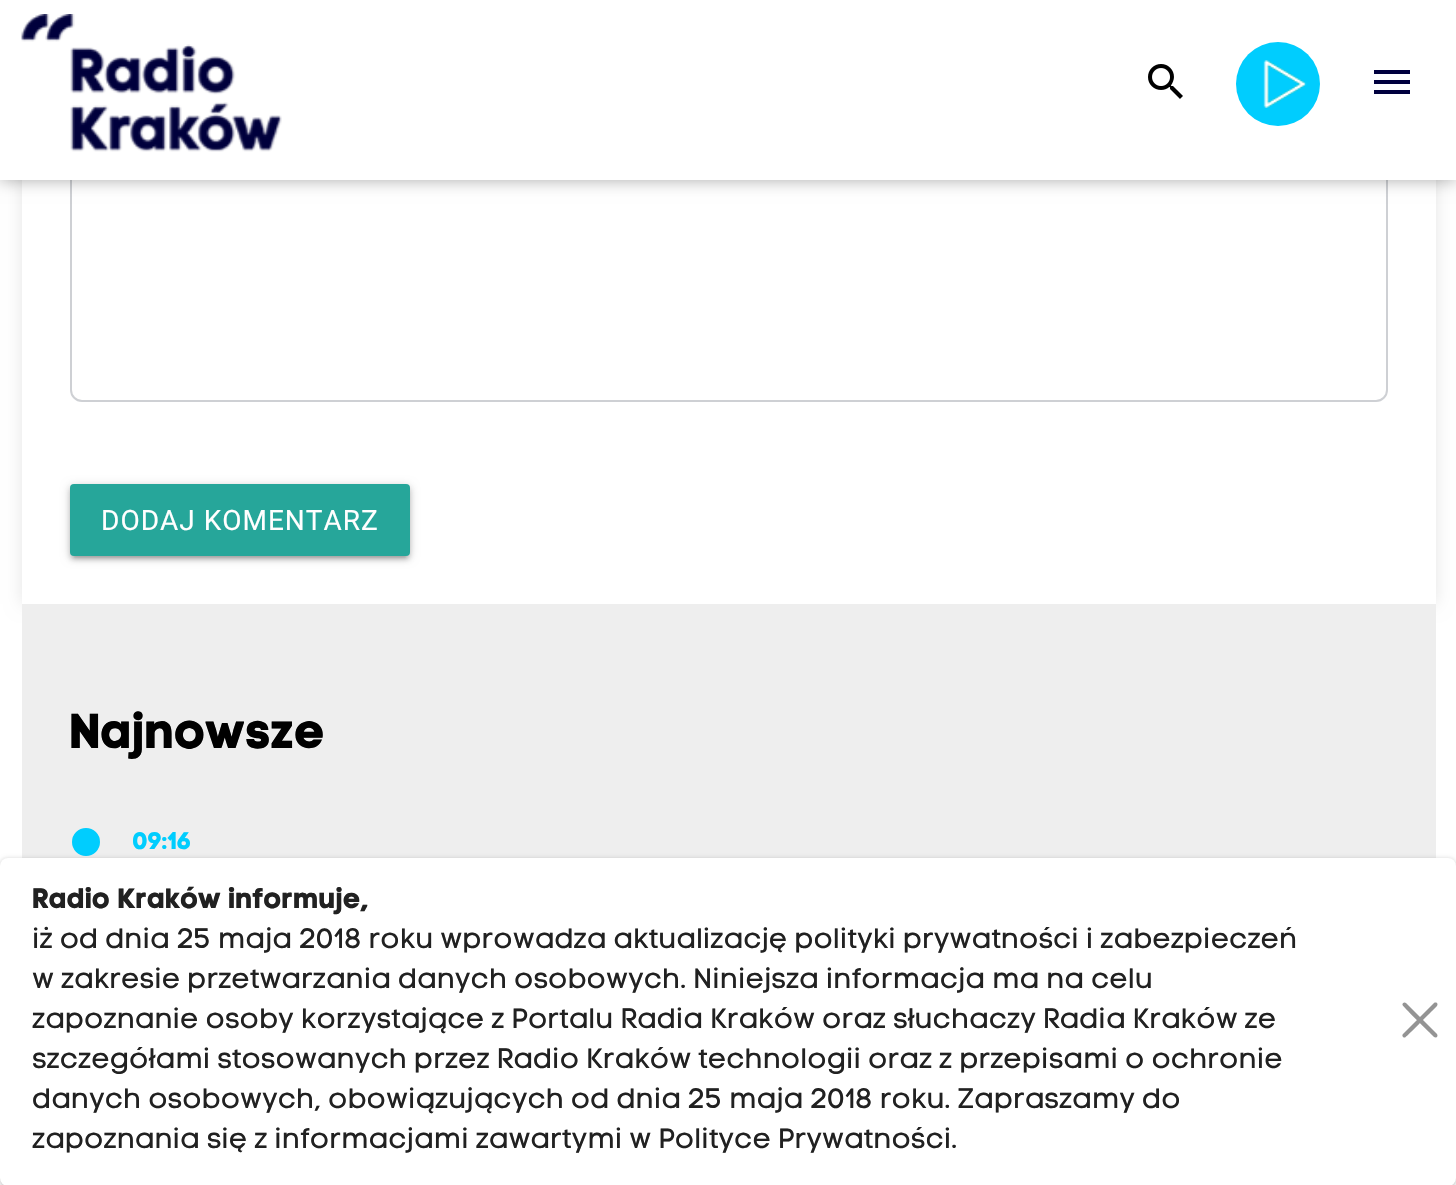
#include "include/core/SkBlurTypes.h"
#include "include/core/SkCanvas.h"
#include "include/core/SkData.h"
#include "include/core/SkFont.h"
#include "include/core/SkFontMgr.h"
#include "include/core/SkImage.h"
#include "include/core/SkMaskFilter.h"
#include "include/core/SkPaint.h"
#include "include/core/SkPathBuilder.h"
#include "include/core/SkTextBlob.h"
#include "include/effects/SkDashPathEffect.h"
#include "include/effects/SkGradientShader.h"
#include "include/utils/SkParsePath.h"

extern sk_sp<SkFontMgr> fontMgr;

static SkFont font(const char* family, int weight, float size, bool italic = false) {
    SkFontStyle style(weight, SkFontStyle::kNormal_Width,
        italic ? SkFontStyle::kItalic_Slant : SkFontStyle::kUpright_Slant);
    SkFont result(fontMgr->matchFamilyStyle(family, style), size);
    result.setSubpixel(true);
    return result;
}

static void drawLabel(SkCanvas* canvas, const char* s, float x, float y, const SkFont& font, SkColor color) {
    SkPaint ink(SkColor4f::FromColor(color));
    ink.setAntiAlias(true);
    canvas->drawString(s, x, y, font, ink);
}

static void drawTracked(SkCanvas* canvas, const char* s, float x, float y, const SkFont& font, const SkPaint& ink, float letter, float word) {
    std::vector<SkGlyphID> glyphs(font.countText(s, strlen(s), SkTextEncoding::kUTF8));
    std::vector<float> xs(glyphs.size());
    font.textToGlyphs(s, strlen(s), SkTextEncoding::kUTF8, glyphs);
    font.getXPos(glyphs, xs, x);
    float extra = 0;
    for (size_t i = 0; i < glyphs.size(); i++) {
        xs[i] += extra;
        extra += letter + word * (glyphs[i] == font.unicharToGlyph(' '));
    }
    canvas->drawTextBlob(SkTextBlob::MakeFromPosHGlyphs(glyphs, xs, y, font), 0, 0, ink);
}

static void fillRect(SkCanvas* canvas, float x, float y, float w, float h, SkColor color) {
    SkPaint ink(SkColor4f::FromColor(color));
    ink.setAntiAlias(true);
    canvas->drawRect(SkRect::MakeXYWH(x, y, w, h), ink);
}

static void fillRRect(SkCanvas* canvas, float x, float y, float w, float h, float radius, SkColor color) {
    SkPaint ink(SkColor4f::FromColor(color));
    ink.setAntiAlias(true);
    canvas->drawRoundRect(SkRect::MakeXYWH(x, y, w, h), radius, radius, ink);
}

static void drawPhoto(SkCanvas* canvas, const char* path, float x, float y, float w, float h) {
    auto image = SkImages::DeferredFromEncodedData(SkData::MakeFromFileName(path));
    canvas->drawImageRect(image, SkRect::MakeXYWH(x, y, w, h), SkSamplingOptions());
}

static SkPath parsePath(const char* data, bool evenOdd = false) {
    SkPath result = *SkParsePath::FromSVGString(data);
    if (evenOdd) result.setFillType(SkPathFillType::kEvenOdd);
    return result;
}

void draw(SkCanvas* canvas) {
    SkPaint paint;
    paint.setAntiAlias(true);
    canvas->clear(0xFFFFFFFF);
    canvas->save();
    canvas->clipPath(parsePath("M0 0H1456V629H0ZM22-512H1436V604H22Z", true), true);
    paint.setColor(0x1A000000);
    paint.setMaskFilter(SkMaskFilter::MakeBlur(kNormal_SkBlurStyle, 8));
    canvas->drawRect(SkRect::MakeXYWH(22, -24, 1414, 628), paint);
    paint.setMaskFilter(nullptr);
    canvas->restore();
    paint.setStroke(true);
    paint.setStrokeWidth(2);
    paint.setColor(0xFFCED0D4);
    canvas->drawRoundRect(SkRect::MakeXYWH(71, 103, 1316, 298), 11, 11, paint);
    paint.setStroke(false);
    paint.setColor(0x54000000);
    paint.setMaskFilter(SkMaskFilter::MakeBlur(kNormal_SkBlurStyle, 8));
    canvas->drawRect(SkRect::MakeXYWH(0, 0, 1456, 180), paint);
    paint.setMaskFilter(nullptr);
    fillRect(canvas, 0, 0, 1456, 180, 0xFFFFFFFF);
    drawPhoto(canvas, "assets/img1.png", 21, 14, 261, 138);
    drawPhoto(canvas, "assets/img2.png", 1148, 64, 35, 35);
    paint.setColor(0xFF00CDFE);
    canvas->drawCircle(1278, 84, 42, paint);
    drawPhoto(canvas, "assets/img3.png", 1263, 60, 44, 48);
    paint.setColor(0xFF00003E);
    canvas->drawPath(parsePath("M1374 70H1410V74H1374ZM1374 84V80H1410V84ZM1374 94V90H1410V94Z"), paint);
    paint.setColor(0x33000000);
    paint.setMaskFilter(SkMaskFilter::MakeBlur(kNormal_SkBlurStyle, 5));
    canvas->drawRoundRect(SkRect::MakeXYWH(70, 486, 340, 72), 4, 4, paint);
    paint.setMaskFilter(nullptr);
    paint.setColor(0x1F000000);
    paint.setMaskFilter(SkMaskFilter::MakeBlur(kNormal_SkBlurStyle, 1));
    canvas->drawRect(SkRect::MakeXYWH(74, 494, 332, 64), paint);
    paint.setMaskFilter(nullptr);
    paint.setColor(0x24000000);
    paint.setMaskFilter(SkMaskFilter::MakeBlur(kNormal_SkBlurStyle, 2));
    canvas->drawRoundRect(SkRect::MakeXYWH(70, 488, 340, 72), 4, 4, paint);
    paint.setMaskFilter(nullptr);
    fillRRect(canvas, 70, 484, 340, 72, 4, 0xFF26A69A);
    SkFont font1 = font("Roboto", 400, 28);
    paint.setColor(0xFFFFFFFF);
    drawTracked(canvas, "DODAJ KOMENTARZ", 101, 530, font1, paint, 1, 0);
    fillRect(canvas, 22, 604, 1414, 254, 0xFFEEEEEE);
    SkFont font2 = font("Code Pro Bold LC", 700, 49);
    drawLabel(canvas, "Najnowsze", 69, 748, font2, 0xFF000000);
    canvas->save();
    canvas->clipRect(SkRect::MakeXYWH(70, 822, 1338, 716));
    paint.setStroke(true);
    paint.setStrokeWidth(12);
    paint.setColor(0xFFEEEEEE);
    canvas->drawCircle(86, 842, 20, paint);
    canvas->restore();
    paint.setStroke(false);
    paint.setColor(0xFF00CDFE);
    canvas->drawCircle(86, 842, 12, paint);
    paint.setStroke(true);
    paint.setStrokeWidth(4);
    canvas->drawCircle(86, 842, 12, paint);
    SkFont font3 = font("Code Pro Bold LC", 700, 24);
    drawLabel(canvas, "09:16", 133, 849, font3, 0xFF00CDFE);
    paint.setStroke(false);
    paint.setColor(0x24000000);
    paint.setMaskFilter(SkMaskFilter::MakeBlur(kNormal_SkBlurStyle, 2));
    canvas->drawRoundRect(SkRect::MakeXYWH(0, 858, 1456, 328), 8, 8, paint);
    paint.setMaskFilter(nullptr);
    paint.setColor(0x1F000000);
    paint.setMaskFilter(SkMaskFilter::MakeBlur(kNormal_SkBlurStyle, 2));
    canvas->drawRoundRect(SkRect::MakeXYWH(0, 862, 1456, 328), 8, 8, paint);
    paint.setMaskFilter(nullptr);
    fillRRect(canvas, 0, 858, 1456, 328, 8, 0xFFFFFFFF);
    SkFont font4 = font("Code Pro Bold LC", 700, 28);
    drawLabel(canvas, "Radio Kraków informuje,", 32, 908, font4, 0xFF212121);
    SkFont font5 = font("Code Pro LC", 400, 28);
    drawLabel(canvas, "iż od dnia 25 maja 2018 roku wprowadza aktualizację polityki prywatności i zabezpieczeń", 32, 948, font5, 0xFF212121);
    drawLabel(canvas, "w zakresie przetwarzania danych osobowych. Niniejsza informacja ma na celu", 32, 988, font5, 0xFF212121);
    drawLabel(canvas, "zapoznanie osoby korzystające z Portalu Radia Kraków oraz słuchaczy Radia Kraków ze", 32, 1028, font5, 0xFF212121);
    paint.setColor(0xFF949494);
    canvas->drawPath(parsePath("M1403 1034L1434 1003C1435.5 1002 1437.5 1002.5 1437.5 1004.5L1437 1006L1432 1011C1429 1014 1406.5 1037 1405 1037.5C1403 1038 1401.5 1035.5 1403 1034Z"), paint);
    canvas->drawPath(parsePath("M1406 1003L1437 1034C1438 1035.5 1437.5 1037.5 1435.5 1037.5L1434 1037L1429 1032C1426 1029 1403 1006.5 1402.5 1005C1402 1003 1404.5 1001.5 1406 1003Z"), paint);
    drawLabel(canvas, "szczegółami stosowanych przez Radio Kraków technologii oraz z przepisami o ochronie", 32, 1068, font5, 0xFF212121);
    drawLabel(canvas, "danych osobowych, obowiązujących od dnia 25 maja 2018 roku. Zapraszamy do", 32, 1108, font5, 0xFF212121);
    drawLabel(canvas, "zapoznania się z informacjami zawartymi w Polityce Prywatności.", 32, 1148, font5, 0xFF212121);
}
